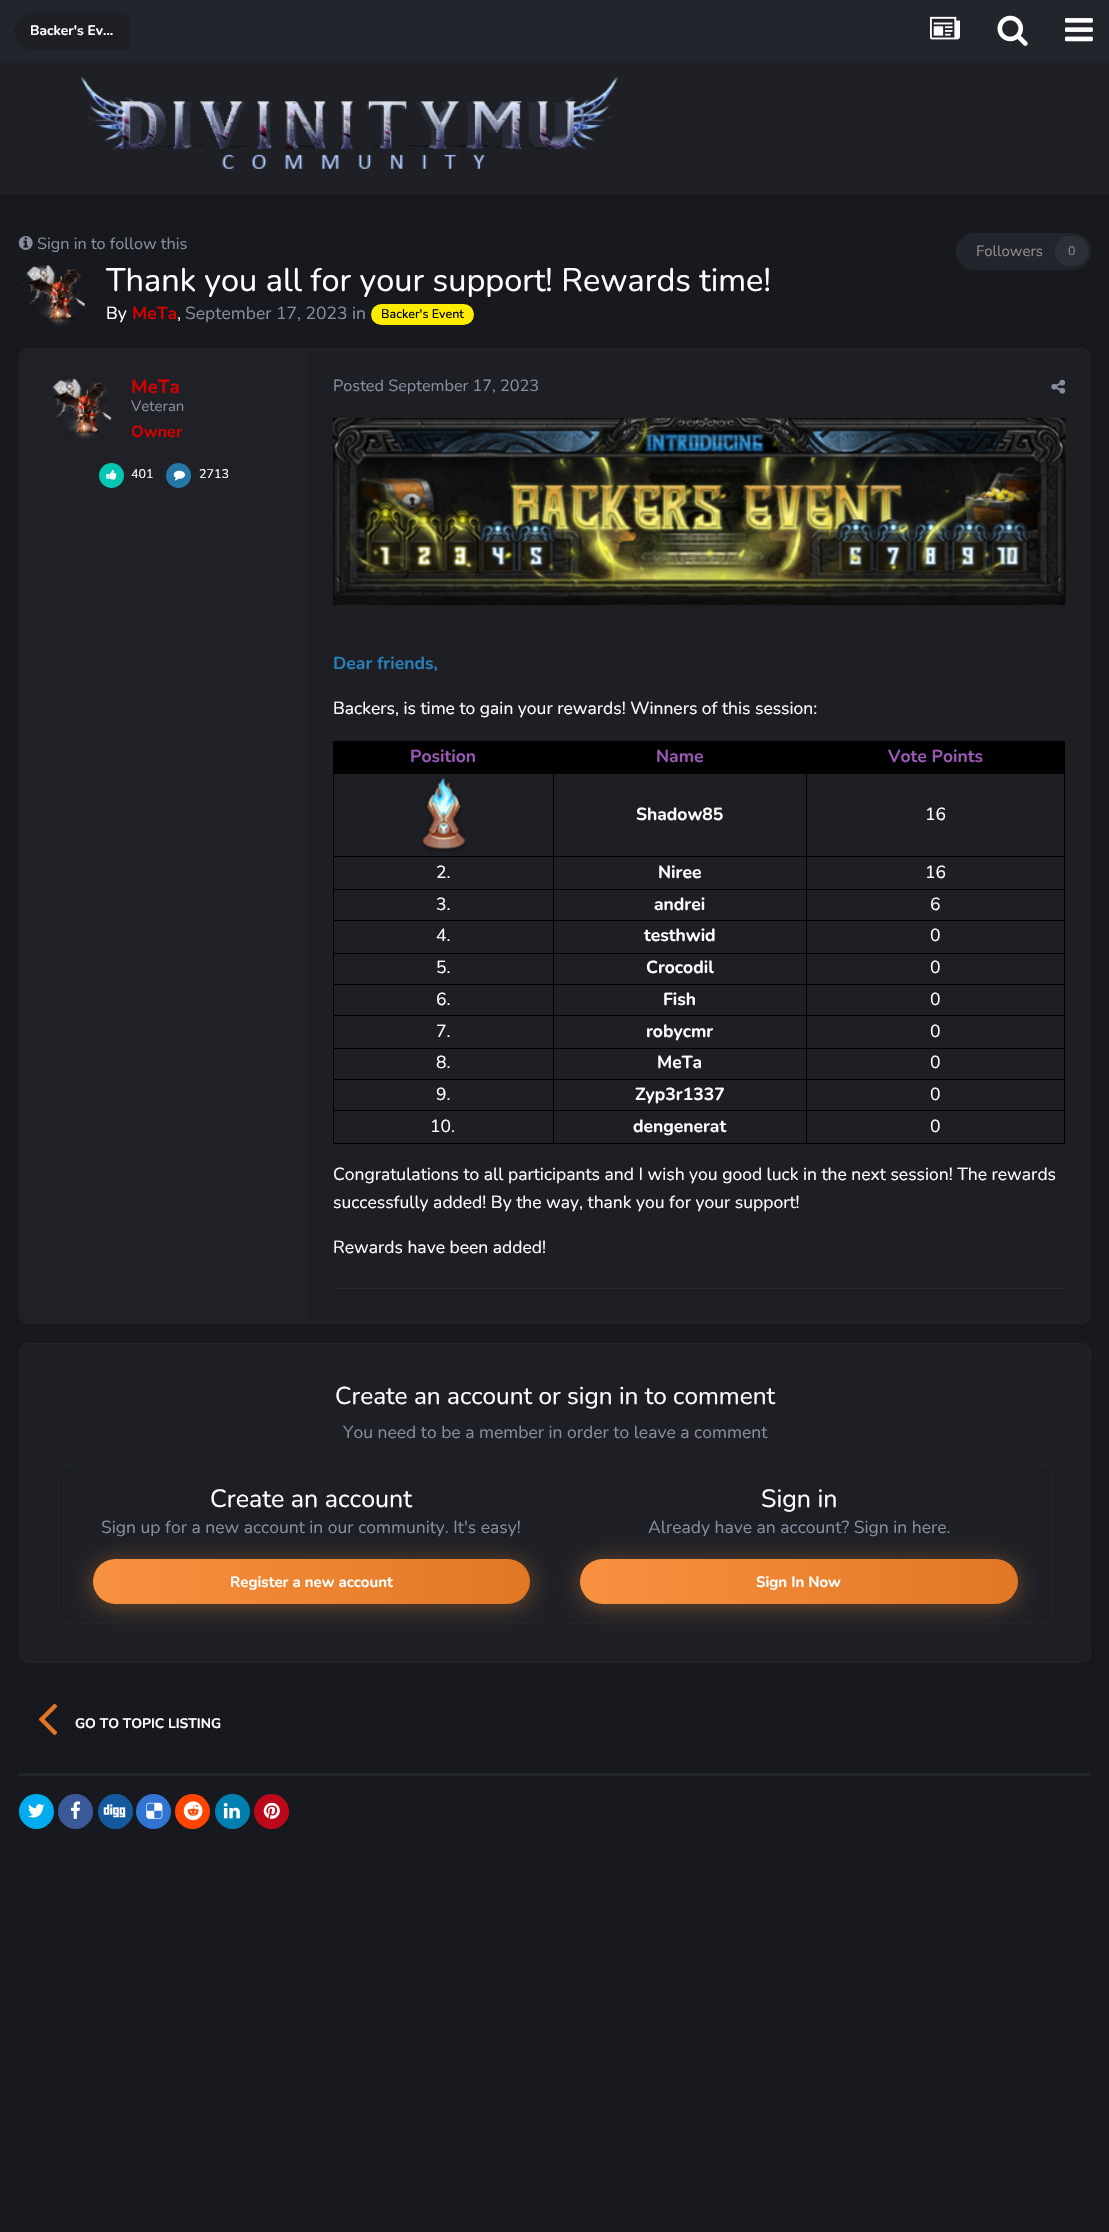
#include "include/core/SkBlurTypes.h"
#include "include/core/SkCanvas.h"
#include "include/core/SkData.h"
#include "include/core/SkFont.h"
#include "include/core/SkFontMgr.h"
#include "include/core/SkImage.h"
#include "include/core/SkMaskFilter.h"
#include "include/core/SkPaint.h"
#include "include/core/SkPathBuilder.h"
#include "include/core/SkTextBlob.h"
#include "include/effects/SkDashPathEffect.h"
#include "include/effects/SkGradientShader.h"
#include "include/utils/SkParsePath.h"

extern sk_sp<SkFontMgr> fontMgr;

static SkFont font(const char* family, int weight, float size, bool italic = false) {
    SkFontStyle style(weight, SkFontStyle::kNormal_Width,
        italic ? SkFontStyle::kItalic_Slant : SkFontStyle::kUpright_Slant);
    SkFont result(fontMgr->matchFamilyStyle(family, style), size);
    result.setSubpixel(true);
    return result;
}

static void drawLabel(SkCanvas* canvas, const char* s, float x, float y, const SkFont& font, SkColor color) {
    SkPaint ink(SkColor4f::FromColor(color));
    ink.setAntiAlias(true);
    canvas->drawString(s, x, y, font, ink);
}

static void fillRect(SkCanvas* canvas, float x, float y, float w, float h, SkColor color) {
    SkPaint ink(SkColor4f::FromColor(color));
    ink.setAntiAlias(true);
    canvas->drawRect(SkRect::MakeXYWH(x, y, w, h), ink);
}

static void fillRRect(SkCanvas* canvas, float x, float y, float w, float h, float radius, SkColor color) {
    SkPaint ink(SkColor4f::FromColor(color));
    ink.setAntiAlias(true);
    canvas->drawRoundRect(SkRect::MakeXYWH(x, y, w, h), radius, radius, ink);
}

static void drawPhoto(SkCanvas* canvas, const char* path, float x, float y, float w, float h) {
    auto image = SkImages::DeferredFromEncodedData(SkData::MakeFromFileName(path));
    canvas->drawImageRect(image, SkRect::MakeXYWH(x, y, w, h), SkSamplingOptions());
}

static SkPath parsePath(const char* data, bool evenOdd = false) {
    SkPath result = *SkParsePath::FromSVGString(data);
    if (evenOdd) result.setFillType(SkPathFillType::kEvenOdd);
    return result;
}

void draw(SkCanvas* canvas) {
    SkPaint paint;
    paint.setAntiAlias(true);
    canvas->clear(0xFF17191F);
    fillRect(canvas, 0, 63, 1109, 132, 0xFF1E2026);
    fillRect(canvas, 0, 0, 1109, 63, 0xFF23252C);
    paint.setColor(0xFF1D1F25);
    canvas->drawPath(parsePath("M30 13H122C126.5 13 130 16.5 130 21V42C130 46.5 126.5 50 122 50H30Z"), paint);
    canvas->drawPath(parsePath("M13 31H30V50.5C28 50.5 25.5 49.5 23 47L18 40ZM30 13V31H13V30.5L20.5 19L24 15.5C25.5 14 27.5 13 30 13Z"), paint);
    SkFont font1 = font("Nunito", 700, 13.75f);
    drawLabel(canvas, "Backer's Ev…", 30, 35, font1, 0xFFFFFFFF);
    drawPhoto(canvas, "assets/img1.png", 930, 16, 30, 24);
    drawPhoto(canvas, "assets/img2.png", 997, 15, 31, 31);
    drawPhoto(canvas, "assets/img3.png", 1065, 18, 28, 24);
    drawPhoto(canvas, "assets/img4.png", 81, 77, 537, 92);
    drawPhoto(canvas, "assets/img5.png", 18, 236, 15, 14);
    SkFont font2 = font("Nunito", 400, 16.25f);
    drawLabel(canvas, "Sign in to follow this", 37, 249, font2, 0xFF888D9D);
    fillRRect(canvas, 956, 233, 135, 37, 18.5f, 0xFF23252C);
    SkFont font3 = font("Nunito", 400, 15);
    drawLabel(canvas, "Followers", 976, 256, font3, 0xFF8B8C8F);
    fillRRect(canvas, 1055, 236, 33, 30, 15, 0xFF2D2F36);
    SkFont font4 = font("Nunito", 400, 12.5f);
    drawLabel(canvas, "0", 1068, 255, font4, 0xFF8B8C8F);
    drawPhoto(canvas, "assets/img6.png", 22, 265, 63, 62);
    SkFont font5 = font("Nunito", 400, 32.5f);
    drawLabel(canvas, "Thank you all for your support! Rewards time!", 106, 291, font5, 0xFFFFFFFF);
    SkFont font6 = font("Nunito", 400, 17.5f);
    drawLabel(canvas, "By", 106, 319, font6, 0xFFFFFFFF);
    SkFont font7 = font("Nunito", 700, 17.5f);
    drawLabel(canvas, "MeTa", 132, 319, font7, 0xFFD50000);
    drawLabel(canvas, ",", 177, 319, font6, 0xFFFFFFFF);
    drawLabel(canvas, "September 17, 2023 in", 185, 319, font6, 0xFF888D9D);
    fillRRect(canvas, 371, 304, 103, 21, 10.5f, 0xFFFCEC02);
    SkFont font8 = font("Nunito", 500, 12.5f);
    drawLabel(canvas, "Backer's Event", 381, 318, font8, 0xFF000000);
    canvas->drawRoundRect(SkRect::MakeXYWH(19.5f, 348.5f, 1071, 975), 9.5f, 9.5f, paint);
    paint.setStroke(true);
    paint.setStrokeWidth(1);
    paint.setColor(0xFF22242B);
    canvas->drawRoundRect(SkRect::MakeXYWH(19.5f, 348.5f, 1071, 975), 9.5f, 9.5f, paint);
    paint.setStroke(false);
    paint.setColor(0xFF202127);
    canvas->drawPath(parsePath("M29 349H308V1323H29C24 1323 20 1319 20 1314V358C20 353 24 349 29 349Z"), paint);
    drawPhoto(canvas, "assets/img7.png", 48, 378, 64, 62);
    SkFont font9 = font("Nunito", 700, 19);
    drawLabel(canvas, "MeTa", 131, 393, font9, 0xFFD50000);
    drawLabel(canvas, "Veteran", 131, 411, font3, 0xFF888D9D);
    SkFont font10 = font("Nunito", 700, 16.25f);
    drawLabel(canvas, "Owner", 131, 437, font10, 0xFFD50000);
    paint.setColor(0xFF05C6B1);
    canvas->drawCircle(111.5f, 475.5f, 12.5f, paint);
    drawPhoto(canvas, "assets/img8.png", 106, 469, 11, 11);
    drawLabel(canvas, "401", 131, 478, font4, 0xFFFFFFFF);
    paint.setColor(0xFF2577A6);
    canvas->drawCircle(178.5f, 475.5f, 12.5f, paint);
    drawPhoto(canvas, "assets/img9.png", 173, 470, 12, 11);
    drawLabel(canvas, "2713", 199, 478, font4, 0xFFFFFFFF);
    drawLabel(canvas, "Posted September 17, 2023", 333, 391, font2, 0xFF888D9D);
    drawPhoto(canvas, "assets/img10.png", 1051, 379, 15, 15);
    drawPhoto(canvas, "assets/img11.png", 333, 418, 733, 188);
    drawLabel(canvas, "Dear friends,", 333, 669, font7, 0xFF2980B9);
    drawLabel(canvas, "Backers, is time to gain your rewards! Winners of this session:", 333, 714, font6, 0xFFFFFFFF);
    fillRect(canvas, 333, 741, 732, 1, 0xFF000000);
    fillRect(canvas, 1064, 741, 1, 403, 0xFF000000);
    fillRect(canvas, 333, 1143, 732, 1, 0xFF000000);
    fillRect(canvas, 333, 741, 1, 403, 0xFF000000);
    fillRect(canvas, 334, 742, 730, 32, 0xFF000000);
    drawLabel(canvas, "Position", 410, 762, font7, 0xFF9B59B6);
    drawLabel(canvas, "Name", 656, 762, font7, 0xFF9B59B6);
    drawLabel(canvas, "Vote Points", 888, 762, font7, 0xFF9B59B6);
    drawPhoto(canvas, "assets/img12.png", 422, 777, 44, 75);
    fillRect(canvas, 806, 856, 259, 1, 0xFF000000);
    fillRect(canvas, 806, 889, 259, 1, 0xFF000000);
    fillRect(canvas, 806, 920, 259, 1, 0xFF000000);
    fillRect(canvas, 806, 953, 259, 1, 0xFF000000);
    fillRect(canvas, 806, 984, 259, 1, 0xFF000000);
    fillRect(canvas, 806, 1015, 259, 1, 0xFF000000);
    fillRect(canvas, 806, 1048, 259, 1, 0xFF000000);
    fillRect(canvas, 806, 1079, 259, 1, 0xFF000000);
    fillRect(canvas, 806, 1110, 259, 1, 0xFF000000);
    fillRect(canvas, 806, 1110, 1, 34, 0xFF000000);
    fillRect(canvas, 553, 1110, 255, 1, 0xFF000000);
    fillRect(canvas, 806, 1079, 1, 32, 0xFF000000);
    fillRect(canvas, 553, 1079, 255, 1, 0xFF000000);
    fillRect(canvas, 806, 1048, 1, 32, 0xFF000000);
    fillRect(canvas, 553, 1048, 255, 1, 0xFF000000);
    fillRect(canvas, 806, 1015, 1, 34, 0xFF000000);
    fillRect(canvas, 553, 1015, 255, 1, 0xFF000000);
    fillRect(canvas, 806, 984, 1, 32, 0xFF000000);
    fillRect(canvas, 553, 984, 255, 1, 0xFF000000);
    fillRect(canvas, 806, 953, 1, 32, 0xFF000000);
    fillRect(canvas, 553, 953, 255, 1, 0xFF000000);
    fillRect(canvas, 806, 920, 1, 34, 0xFF000000);
    fillRect(canvas, 553, 920, 255, 1, 0xFF000000);
    fillRect(canvas, 806, 889, 1, 32, 0xFF000000);
    fillRect(canvas, 553, 889, 255, 1, 0xFF000000);
    fillRect(canvas, 806, 856, 1, 34, 0xFF000000);
    fillRect(canvas, 553, 856, 255, 1, 0xFF000000);
    fillRect(canvas, 553, 1110, 1, 34, 0xFF000000);
    fillRect(canvas, 333, 1110, 221, 1, 0xFF000000);
    fillRect(canvas, 553, 1079, 1, 32, 0xFF000000);
    fillRect(canvas, 333, 1079, 221, 1, 0xFF000000);
    fillRect(canvas, 553, 1048, 1, 32, 0xFF000000);
    fillRect(canvas, 333, 1048, 221, 1, 0xFF000000);
    fillRect(canvas, 553, 1015, 1, 34, 0xFF000000);
    fillRect(canvas, 333, 1015, 221, 1, 0xFF000000);
    fillRect(canvas, 553, 984, 1, 32, 0xFF000000);
    fillRect(canvas, 333, 984, 221, 1, 0xFF000000);
    fillRect(canvas, 553, 953, 1, 32, 0xFF000000);
    fillRect(canvas, 333, 953, 221, 1, 0xFF000000);
    fillRect(canvas, 553, 920, 1, 34, 0xFF000000);
    fillRect(canvas, 333, 920, 221, 1, 0xFF000000);
    fillRect(canvas, 553, 889, 1, 32, 0xFF000000);
    fillRect(canvas, 333, 889, 221, 1, 0xFF000000);
    fillRect(canvas, 553, 856, 1, 34, 0xFF000000);
    fillRect(canvas, 333, 856, 221, 1, 0xFF000000);
    fillRect(canvas, 553, 773, 1, 85, 0xFF000000);
    drawLabel(canvas, "Shadow85", 636, 820, font7, 0xFFFFFFFF);
    fillRect(canvas, 806, 773, 1, 85, 0xFF000000);
    drawLabel(canvas, "16", 925, 820, font6, 0xFFFFFFFF);
    drawLabel(canvas, "2.", 436, 878, font6, 0xFFFFFFFF);
    drawLabel(canvas, "Niree", 658, 878, font7, 0xFFFFFFFF);
    drawLabel(canvas, "16", 925, 878, font6, 0xFFFFFFFF);
    drawLabel(canvas, "3.", 436, 910, font6, 0xFFFFFFFF);
    drawLabel(canvas, "andrei", 654, 910, font7, 0xFFFFFFFF);
    drawLabel(canvas, "6", 930, 910, font6, 0xFFFFFFFF);
    drawLabel(canvas, "4.", 436, 941, font6, 0xFFFFFFFF);
    drawLabel(canvas, "testhwid", 644, 941, font7, 0xFFFFFFFF);
    drawLabel(canvas, "0", 930, 941, font6, 0xFFFFFFFF);
    drawLabel(canvas, "5.", 436, 973, font6, 0xFFFFFFFF);
    drawLabel(canvas, "Crocodil", 646, 973, font7, 0xFFFFFFFF);
    drawLabel(canvas, "0", 930, 973, font6, 0xFFFFFFFF);
    drawLabel(canvas, "6.", 436, 1005, font6, 0xFFFFFFFF);
    drawLabel(canvas, "Fish", 663, 1005, font7, 0xFFFFFFFF);
    drawLabel(canvas, "0", 930, 1005, font6, 0xFFFFFFFF);
    drawLabel(canvas, "7.", 436, 1037, font6, 0xFFFFFFFF);
    drawLabel(canvas, "robycmr", 646, 1037, font7, 0xFFFFFFFF);
    drawLabel(canvas, "0", 930, 1037, font6, 0xFFFFFFFF);
    drawLabel(canvas, "8.", 436, 1068, font6, 0xFFFFFFFF);
    drawLabel(canvas, "MeTa", 657, 1068, font7, 0xFFFFFFFF);
    drawLabel(canvas, "0", 930, 1068, font6, 0xFFFFFFFF);
    drawLabel(canvas, "9.", 436, 1100, font6, 0xFFFFFFFF);
    drawLabel(canvas, "Zyp3r1337", 635, 1100, font7, 0xFFFFFFFF);
    drawLabel(canvas, "0", 930, 1100, font6, 0xFFFFFFFF);
    drawLabel(canvas, "10.", 430, 1132, font6, 0xFFFFFFFF);
    drawLabel(canvas, "dengenerat", 633, 1132, font7, 0xFFFFFFFF);
    drawLabel(canvas, "0", 930, 1132, font6, 0xFFFFFFFF);
    drawLabel(canvas, "Congratulations to all participants and I wish you good luck in the next session! The rewards", 333, 1180, font6, 0xFFFFFFFF);
    drawLabel(canvas, "successfully added! By the way, thank you for your support!", 333, 1208, font6, 0xFFFFFFFF);
    drawLabel(canvas, "Rewards have been added!", 333, 1253, font6, 0xFFFFFFFF);
    fillRect(canvas, 333, 1288, 732, 1, 0xFF282A31);
    paint.setColor(0xFF1D1F25);
    canvas->drawRoundRect(SkRect::MakeXYWH(19.5f, 1343.5f, 1071, 319), 9.5f, 9.5f, paint);
    paint.setStroke(true);
    paint.setColor(0xFF22242B);
    canvas->drawRoundRect(SkRect::MakeXYWH(19.5f, 1343.5f, 1071, 319), 9.5f, 9.5f, paint);
    SkFont font11 = font("Nunito", 400, 24.4f);
    drawLabel(canvas, "Create an account or sign in to comment", 335, 1404, font11, 0xFFFFFFFF);
    drawLabel(canvas, "You need to be a member in order to leave a comment", 343, 1438, font6, 0xFF888D9D);
    canvas->drawRoundRect(SkRect::MakeXYWH(58.5f, 1464.5f, 994, 159), 9.5f, 9.5f, paint);
    SkFont font12 = font("Nunito", 400, 25);
    drawLabel(canvas, "Create an account", 210, 1507, font12, 0xFFFFFFFF);
    drawLabel(canvas, "Sign up for a new account in our community. It's easy!", 101, 1533, font6, 0xFF888D9D);
    paint.setStroke(false);
    paint.setColor(0x4DF89140);
    paint.setMaskFilter(SkMaskFilter::MakeBlur(kNormal_SkBlurStyle, 11));
    canvas->drawRoundRect(SkRect::MakeXYWH(90, 1559, 443, 50), 25, 25, paint);
    paint.setMaskFilter(nullptr);
    {
        const SkColor colors[] = {0xFFF89140, 0xFFE17724};
        const float stops[] = {0, 1};
        const SkPoint ends[] = {{93, 1581}, {530, 1581}};
        paint.setShader(SkGradientShader::MakeLinear(ends, colors, stops, 2, SkTileMode::kClamp));
        paint.setAlpha(255);
    }
    canvas->drawRoundRect(SkRect::MakeXYWH(93, 1559, 437, 45), 22.5f, 22.5f, paint);
    SkFont font13 = font("Nunito", 700, 15);
    drawLabel(canvas, "Register a new account", 230, 1587, font13, 0xFFFFFFFF);
    drawLabel(canvas, "Sign in", 761, 1507, font12, 0xFFFFFFFF);
    drawLabel(canvas, "Already have an account? Sign in here.", 648, 1533, font6, 0xFF888D9D);
    paint.setShader(nullptr);
    paint.setColor(0x4DF89140);
    paint.setMaskFilter(SkMaskFilter::MakeBlur(kNormal_SkBlurStyle, 11));
    canvas->drawRoundRect(SkRect::MakeXYWH(578, 1559, 442, 50), 25, 25, paint);
    paint.setMaskFilter(nullptr);
    {
        const SkColor colors[] = {0xFFF89140, 0xFFE17724};
        const float stops[] = {0, 1};
        const SkPoint ends[] = {{580, 1581}, {1018, 1581}};
        paint.setShader(SkGradientShader::MakeLinear(ends, colors, stops, 2, SkTileMode::kClamp));
        paint.setAlpha(255);
    }
    canvas->drawRoundRect(SkRect::MakeXYWH(580, 1559, 438, 45), 22.5f, 22.5f, paint);
    drawLabel(canvas, "Sign In Now", 756, 1587, font13, 0xFFFFFFFF);
    drawPhoto(canvas, "assets/img13.png", 38, 1703, 20, 33);
    drawLabel(canvas, "GO TO TOPIC LISTING", 75, 1728, font1, 0xFFFFFFFF);
    fillRect(canvas, 19, 1773, 1072, 3, 0xFF22252C);
    paint.setShader(nullptr);
    paint.setColor(0xFF00ACED);
    canvas->drawCircle(36.5f, 1811.5f, 17.5f, paint);
    drawPhoto(canvas, "assets/img14.png", 28, 1804, 17, 14);
    paint.setColor(0xFF3B5998);
    canvas->drawCircle(75.5f, 1811.5f, 17.5f, paint);
    drawPhoto(canvas, "assets/img15.png", 71, 1801, 10, 18);
    paint.setColor(0xFF14589E);
    canvas->drawCircle(115.5f, 1811.5f, 17.5f, paint);
    drawPhoto(canvas, "assets/img16.png", 103, 1804, 23, 14);
    paint.setColor(0xFF3274D1);
    canvas->drawCircle(153.5f, 1811.5f, 17.5f, paint);
    drawPhoto(canvas, "assets/img17.png", 146, 1802, 17, 17);
    paint.setColor(0xFFFF4500);
    canvas->drawCircle(192.5f, 1811.5f, 17.5f, paint);
    drawPhoto(canvas, "assets/img18.png", 183, 1801, 20, 20);
    paint.setColor(0xFF007FB1);
    canvas->drawCircle(232.5f, 1811.5f, 17.5f, paint);
    drawPhoto(canvas, "assets/img19.png", 223, 1803, 17, 16);
    paint.setColor(0xFFBD081C);
    canvas->drawCircle(271.5f, 1811.5f, 17.5f, paint);
    drawPhoto(canvas, "assets/img20.png", 263, 1802, 17, 17);
}
